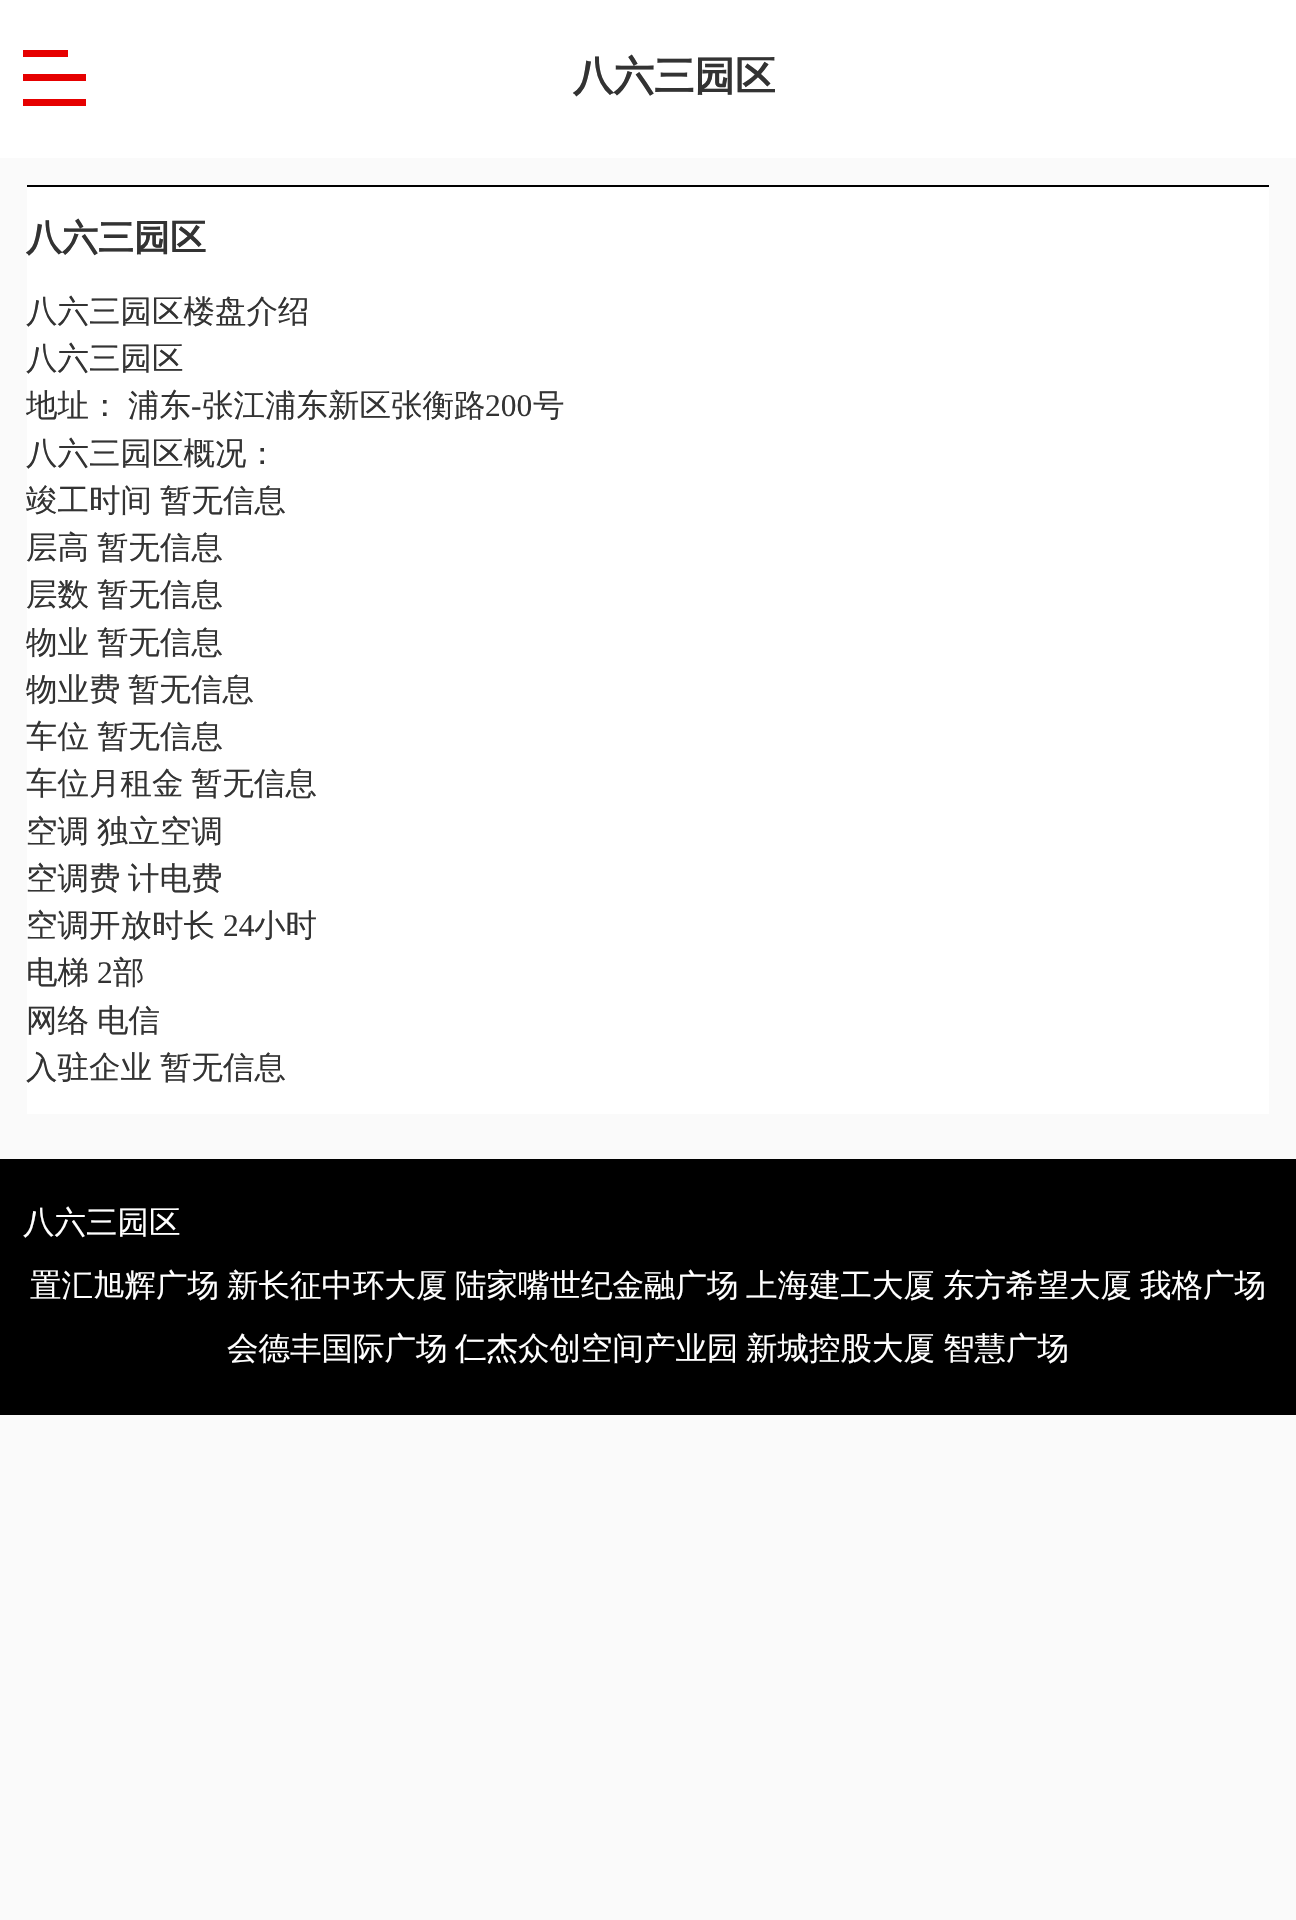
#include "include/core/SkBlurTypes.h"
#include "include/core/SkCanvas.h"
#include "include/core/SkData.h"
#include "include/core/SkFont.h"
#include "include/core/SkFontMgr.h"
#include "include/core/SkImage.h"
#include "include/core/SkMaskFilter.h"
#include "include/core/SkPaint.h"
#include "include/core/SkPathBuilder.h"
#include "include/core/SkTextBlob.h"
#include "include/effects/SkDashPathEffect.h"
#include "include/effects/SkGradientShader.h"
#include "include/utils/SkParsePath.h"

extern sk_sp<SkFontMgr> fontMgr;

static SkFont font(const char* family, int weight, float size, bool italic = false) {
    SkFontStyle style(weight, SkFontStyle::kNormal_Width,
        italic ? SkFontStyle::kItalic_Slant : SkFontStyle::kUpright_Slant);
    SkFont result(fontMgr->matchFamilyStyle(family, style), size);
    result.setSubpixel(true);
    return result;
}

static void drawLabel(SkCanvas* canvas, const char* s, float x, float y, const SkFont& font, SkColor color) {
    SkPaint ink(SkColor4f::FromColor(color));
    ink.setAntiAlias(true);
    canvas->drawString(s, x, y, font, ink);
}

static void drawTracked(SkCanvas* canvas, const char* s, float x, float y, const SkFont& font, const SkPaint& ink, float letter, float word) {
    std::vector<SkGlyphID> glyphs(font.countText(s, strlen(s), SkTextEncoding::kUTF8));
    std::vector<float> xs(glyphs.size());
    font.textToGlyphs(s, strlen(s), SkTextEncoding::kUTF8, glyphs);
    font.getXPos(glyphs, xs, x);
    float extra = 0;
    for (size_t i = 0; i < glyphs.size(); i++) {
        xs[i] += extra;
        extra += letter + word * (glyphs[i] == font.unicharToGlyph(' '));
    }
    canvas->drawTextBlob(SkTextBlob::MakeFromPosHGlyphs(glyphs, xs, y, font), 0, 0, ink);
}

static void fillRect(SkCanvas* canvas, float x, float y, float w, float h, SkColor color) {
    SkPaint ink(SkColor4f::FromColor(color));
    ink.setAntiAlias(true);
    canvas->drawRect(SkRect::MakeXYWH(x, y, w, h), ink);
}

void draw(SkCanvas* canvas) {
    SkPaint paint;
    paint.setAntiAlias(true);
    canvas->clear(0xFFFAFAFA);
    fillRect(canvas, 0, 0, 1296, 158, 0xFFFFFFFF);
    fillRect(canvas, 23, 50, 45, 7, 0xFFE60000);
    fillRect(canvas, 23, 74, 63, 7, 0xFFE60000);
    fillRect(canvas, 23, 99, 63, 7, 0xFFE60000);
    SkFont font1 = font("WenQuanYi Zen Hei", 700, 40.5f);
    drawLabel(canvas, "八六三园区", 573, 90, font1, 0xFF333333);
    fillRect(canvas, 27, 187, 1242, 927, 0xFFFFFFFF);
    fillRect(canvas, 27, 185, 1242, 2, 0xFF000000);
    SkFont font2 = font("WenQuanYi Zen Hei", 700, 36);
    drawLabel(canvas, "八六三园区", 26, 250, font2, 0xFF333333);
    SkFont font3 = font("WenQuanYi Zen Hei", 500, 31.5f);
    drawLabel(canvas, "八六三园区楼盘介绍", 26, 322, font3, 0xFF333333);
    drawLabel(canvas, "八六三园区", 26, 369, font3, 0xFF333333);
    paint.setColor(0xFF333333);
    drawTracked(canvas, "地址： 浦东", 26, 416, font3, paint, 0, -2);
    SkFont font4 = font("Liberation Serif", 400, 31.5f);
    drawLabel(canvas, "-", 191, 416, font4, 0xFF333333);
    drawLabel(canvas, "张江浦东新区张衡路", 202, 416, font3, 0xFF333333);
    drawLabel(canvas, "200", 485, 416, font4, 0xFF333333);
    drawLabel(canvas, "号", 533, 416, font3, 0xFF333333);
    drawLabel(canvas, "八六三园区概况：", 26, 464, font3, 0xFF333333);
    drawLabel(canvas, "竣工时间", 26, 511, font3, 0xFF333333);
    drawLabel(canvas, "暂无信息", 160, 511, font3, 0xFF333333);
    drawLabel(canvas, "层高", 26, 558, font3, 0xFF333333);
    drawLabel(canvas, "暂无信息", 97, 558, font3, 0xFF333333);
    drawLabel(canvas, "层数", 26, 605, font3, 0xFF333333);
    drawLabel(canvas, "暂无信息", 97, 605, font3, 0xFF333333);
    drawLabel(canvas, "物业", 26, 653, font3, 0xFF333333);
    drawLabel(canvas, "暂无信息", 97, 653, font3, 0xFF333333);
    drawLabel(canvas, "物业费", 26, 700, font3, 0xFF333333);
    drawLabel(canvas, "暂无信息", 128, 700, font3, 0xFF333333);
    drawLabel(canvas, "车位", 26, 747, font3, 0xFF333333);
    drawLabel(canvas, "暂无信息", 97, 747, font3, 0xFF333333);
    drawLabel(canvas, "车位月租金", 26, 794, font3, 0xFF333333);
    drawLabel(canvas, "暂无信息", 191, 794, font3, 0xFF333333);
    drawLabel(canvas, "空调", 26, 842, font3, 0xFF333333);
    drawLabel(canvas, "独立空调", 97, 842, font3, 0xFF333333);
    drawLabel(canvas, "空调费", 26, 889, font3, 0xFF333333);
    drawLabel(canvas, "计电费", 128, 889, font3, 0xFF333333);
    drawLabel(canvas, "空调开放时长", 26, 936, font3, 0xFF333333);
    drawLabel(canvas, "24", 223, 936, font4, 0xFF333333);
    drawLabel(canvas, "小时", 254, 936, font3, 0xFF333333);
    drawLabel(canvas, "电梯", 26, 983, font3, 0xFF333333);
    drawLabel(canvas, "2", 97, 983, font4, 0xFF333333);
    drawLabel(canvas, "部", 113, 983, font3, 0xFF333333);
    drawLabel(canvas, "网络", 26, 1031, font3, 0xFF333333);
    drawLabel(canvas, "电信", 97, 1031, font3, 0xFF333333);
    drawLabel(canvas, "入驻企业", 26, 1078, font3, 0xFF333333);
    drawLabel(canvas, "暂无信息", 160, 1078, font3, 0xFF333333);
    fillRect(canvas, 0, 1159, 1296, 256, 0xFF000000);
    drawLabel(canvas, "八六三园区", 23, 1233, font3, 0xFFFFFFFF);
    drawLabel(canvas, "置汇旭辉广场", 30, 1296, font3, 0xFFFFFFFF);
    drawLabel(canvas, "新长征中环大厦", 227, 1296, font3, 0xFFFFFFFF);
    drawLabel(canvas, "陆家嘴世纪金融广场", 455, 1296, font3, 0xFFFFFFFF);
    drawLabel(canvas, "上海建工大厦", 746, 1296, font3, 0xFFFFFFFF);
    drawLabel(canvas, "东方希望大厦", 943, 1296, font3, 0xFFFFFFFF);
    drawLabel(canvas, "我格广场", 1140, 1296, font3, 0xFFFFFFFF);
    drawLabel(canvas, "会德丰国际广场", 227, 1359, font3, 0xFFFFFFFF);
    drawLabel(canvas, "仁杰众创空间产业园", 455, 1359, font3, 0xFFFFFFFF);
    drawLabel(canvas, "新城控股大厦", 746, 1359, font3, 0xFFFFFFFF);
    drawLabel(canvas, "智慧广场", 943, 1359, font3, 0xFFFFFFFF);
}
